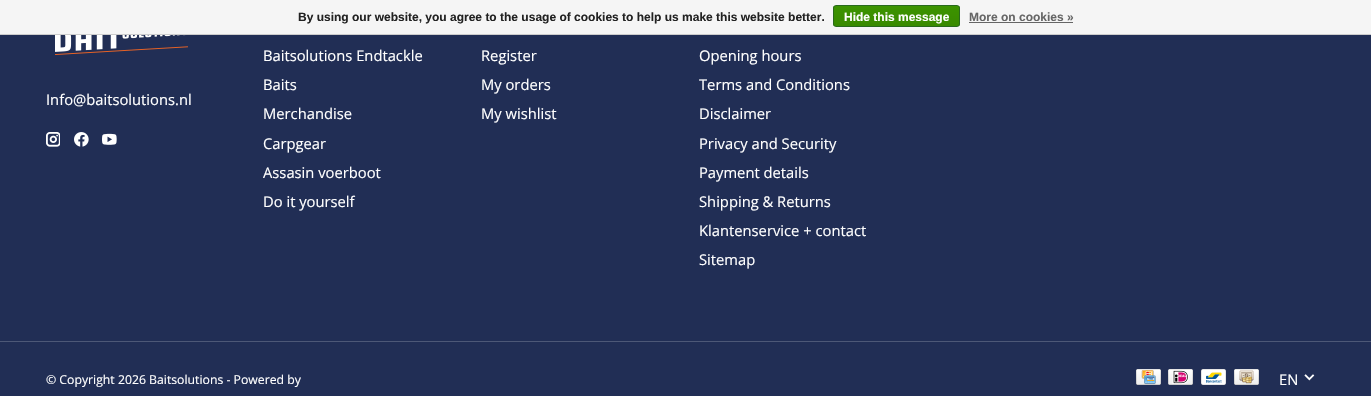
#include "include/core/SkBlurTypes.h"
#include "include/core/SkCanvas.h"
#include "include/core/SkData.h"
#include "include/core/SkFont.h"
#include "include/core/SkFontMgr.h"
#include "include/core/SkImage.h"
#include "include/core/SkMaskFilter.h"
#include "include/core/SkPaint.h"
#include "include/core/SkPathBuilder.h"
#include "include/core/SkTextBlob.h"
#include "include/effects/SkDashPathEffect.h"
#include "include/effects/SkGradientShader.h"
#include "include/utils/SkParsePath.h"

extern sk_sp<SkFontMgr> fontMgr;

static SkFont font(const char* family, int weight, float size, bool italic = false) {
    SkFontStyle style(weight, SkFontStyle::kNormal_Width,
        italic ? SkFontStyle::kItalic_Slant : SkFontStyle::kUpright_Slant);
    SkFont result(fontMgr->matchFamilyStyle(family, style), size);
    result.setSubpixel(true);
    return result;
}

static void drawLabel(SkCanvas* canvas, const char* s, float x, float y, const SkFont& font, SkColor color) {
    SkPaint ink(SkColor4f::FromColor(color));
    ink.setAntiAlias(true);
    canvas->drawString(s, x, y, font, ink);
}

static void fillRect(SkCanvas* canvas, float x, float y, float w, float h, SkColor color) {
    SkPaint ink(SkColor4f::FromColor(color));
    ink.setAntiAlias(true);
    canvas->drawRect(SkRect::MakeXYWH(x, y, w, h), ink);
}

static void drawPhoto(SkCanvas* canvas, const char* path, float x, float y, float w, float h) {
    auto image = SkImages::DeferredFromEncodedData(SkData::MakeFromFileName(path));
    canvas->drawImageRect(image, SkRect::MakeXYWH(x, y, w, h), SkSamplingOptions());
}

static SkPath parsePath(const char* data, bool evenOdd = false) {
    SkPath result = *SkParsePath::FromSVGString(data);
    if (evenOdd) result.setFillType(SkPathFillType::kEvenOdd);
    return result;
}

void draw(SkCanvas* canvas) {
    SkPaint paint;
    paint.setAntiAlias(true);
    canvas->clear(0xFF212E55);
    fillRect(canvas, 0, 0, 1371, 34, 0xFFF5F5F5);
    fillRect(canvas, 0, 34, 1371, 1, 0xFFCCCCCC);
    SkFont font1 = font("Liberation Sans", 700, 12);
    drawLabel(canvas, "By using our website, you agree to the usage of cookies to help us make this website better.", 298, 21, font1, 0xFF222222);
    canvas->save();
    canvas->clipPath(parsePath("M836 5H957C958.5 5 960 6.5 960 8V24C960 25.5 958.5 27 957 27H836C834.5 27 833 25.5 833 24V8C833 6.5 834.5 5 836 5Z"), true);
    {
        const SkColor colors[] = {0xFF3C9300, 0xFF398A00};
        const float stops[] = {0, 1};
        const SkPoint ends[] = {{897, 6}, {897, 26}};
        paint.setShader(SkGradientShader::MakeLinear(ends, colors, stops, 2, SkTileMode::kClamp));
        paint.setAlpha(255);
    }
    canvas->drawRect(SkRect::MakeXYWH(833, 6, 127, 20), paint);
    canvas->restore();
    paint.setStroke(true);
    paint.setStrokeWidth(1);
    paint.setShader(nullptr);
    paint.setColor(0xFF29691D);
    canvas->drawRoundRect(SkRect::MakeXYWH(833.5f, 5.5f, 126, 21), 2.5f, 2.5f, paint);
    drawLabel(canvas, "Hide this message", 844, 21, font1, 0xFFFFFFFF);
    drawLabel(canvas, "More on cookies »", 969, 21, font1, 0xFF666666);
    fillRect(canvas, 969, 22, 104, 1, 0xFF666666);
    drawPhoto(canvas, "assets/img1.png", 55, 35, 133, 20);
    SkFont font2 = font("Open Sans", 400, 14.75f);
    drawLabel(canvas, "Info@baitsolutions.nl", 46, 105, font2, 0xFFFFFFFF);
    drawPhoto(canvas, "assets/img2.png", 46, 132, 14, 15);
    drawPhoto(canvas, "assets/img3.png", 74, 132, 15, 15);
    drawPhoto(canvas, "assets/img4.png", 102, 133, 15, 12);
    drawLabel(canvas, "Baitsolutions Endtackle", 263, 61, font2, 0xFFFFFFFF);
    drawLabel(canvas, "Baits", 263, 90, font2, 0xFFFFFFFF);
    drawLabel(canvas, "Merchandise", 263, 119, font2, 0xFFFFFFFF);
    drawLabel(canvas, "Carpgear", 263, 149, font2, 0xFFFFFFFF);
    drawLabel(canvas, "Assasin voerboot", 263, 178, font2, 0xFFFFFFFF);
    drawLabel(canvas, "Do it yourself", 263, 207, font2, 0xFFFFFFFF);
    drawLabel(canvas, "Register", 481, 61, font2, 0xFFFFFFFF);
    drawLabel(canvas, "My orders", 481, 90, font2, 0xFFFFFFFF);
    drawLabel(canvas, "My wishlist", 481, 119, font2, 0xFFFFFFFF);
    drawLabel(canvas, "Opening hours", 699, 61, font2, 0xFFFFFFFF);
    drawLabel(canvas, "Terms and Conditions", 699, 90, font2, 0xFFFFFFFF);
    drawLabel(canvas, "Disclaimer", 699, 119, font2, 0xFFFFFFFF);
    drawLabel(canvas, "Privacy and Security", 699, 149, font2, 0xFFFFFFFF);
    drawLabel(canvas, "Payment details", 699, 178, font2, 0xFFFFFFFF);
    drawLabel(canvas, "Shipping & Returns", 699, 207, font2, 0xFFFFFFFF);
    drawLabel(canvas, "Klantenservice + contact", 699, 236, font2, 0xFFFFFFFF);
    drawLabel(canvas, "Sitemap", 699, 265, font2, 0xFFFFFFFF);
    fillRect(canvas, 0, 341, 1371, 1, 0xFF4D5877);
    SkFont font3 = font("Open Sans", 400, 12.25f);
    drawLabel(canvas, "© Copyright 2026 Baitsolutions - Powered by", 46, 384, font3, 0xFFFFFFFF);
    drawPhoto(canvas, "assets/img5.png", 1136, 369, 25, 16);
    drawPhoto(canvas, "assets/img6.png", 1168, 369, 25, 16);
    drawPhoto(canvas, "assets/img7.png", 1201, 369, 25, 16);
    drawPhoto(canvas, "assets/img8.png", 1234, 369, 25, 16);
    drawLabel(canvas, "EN", 1279, 385, font2, 0xFFFFFFFF);
    drawPhoto(canvas, "assets/img9.png", 1304, 374, 11, 7);
}
